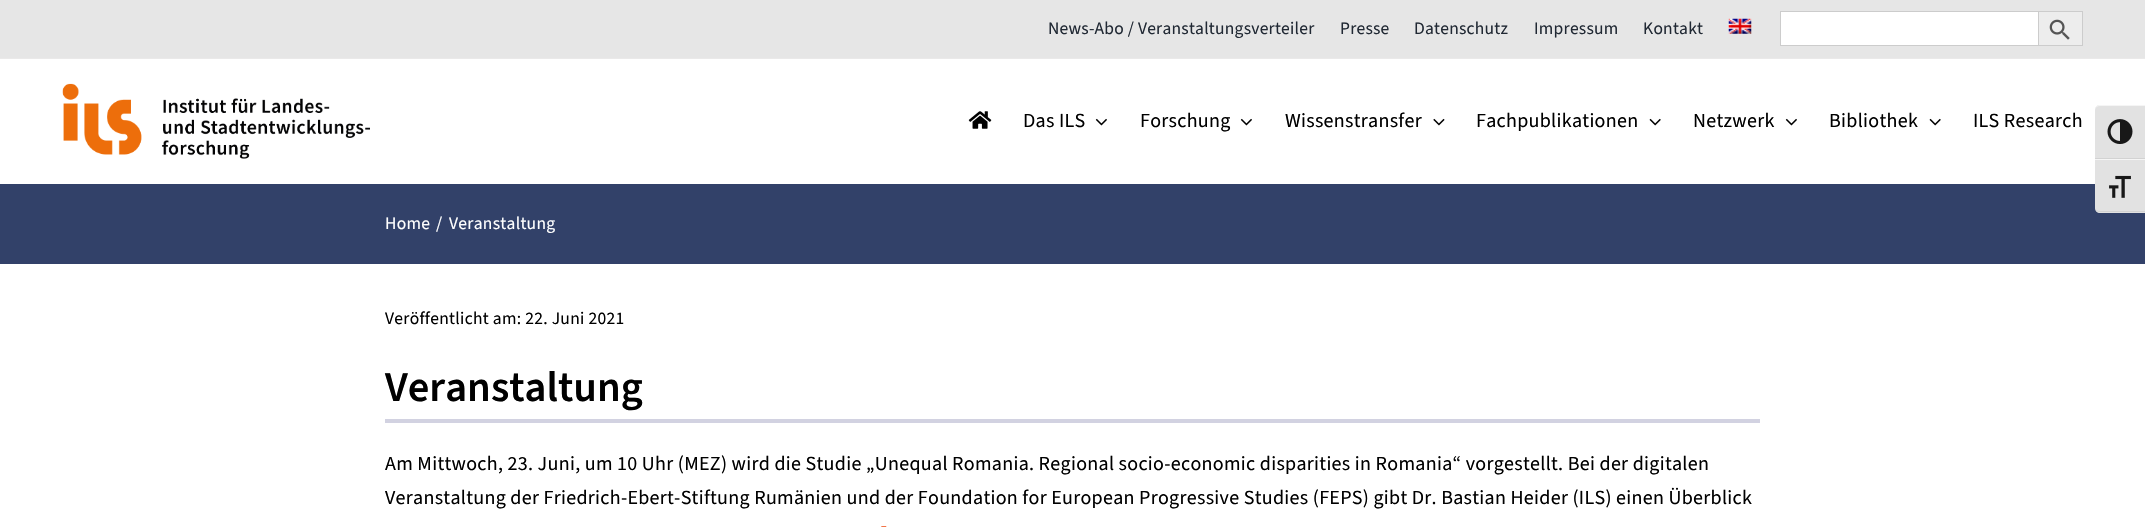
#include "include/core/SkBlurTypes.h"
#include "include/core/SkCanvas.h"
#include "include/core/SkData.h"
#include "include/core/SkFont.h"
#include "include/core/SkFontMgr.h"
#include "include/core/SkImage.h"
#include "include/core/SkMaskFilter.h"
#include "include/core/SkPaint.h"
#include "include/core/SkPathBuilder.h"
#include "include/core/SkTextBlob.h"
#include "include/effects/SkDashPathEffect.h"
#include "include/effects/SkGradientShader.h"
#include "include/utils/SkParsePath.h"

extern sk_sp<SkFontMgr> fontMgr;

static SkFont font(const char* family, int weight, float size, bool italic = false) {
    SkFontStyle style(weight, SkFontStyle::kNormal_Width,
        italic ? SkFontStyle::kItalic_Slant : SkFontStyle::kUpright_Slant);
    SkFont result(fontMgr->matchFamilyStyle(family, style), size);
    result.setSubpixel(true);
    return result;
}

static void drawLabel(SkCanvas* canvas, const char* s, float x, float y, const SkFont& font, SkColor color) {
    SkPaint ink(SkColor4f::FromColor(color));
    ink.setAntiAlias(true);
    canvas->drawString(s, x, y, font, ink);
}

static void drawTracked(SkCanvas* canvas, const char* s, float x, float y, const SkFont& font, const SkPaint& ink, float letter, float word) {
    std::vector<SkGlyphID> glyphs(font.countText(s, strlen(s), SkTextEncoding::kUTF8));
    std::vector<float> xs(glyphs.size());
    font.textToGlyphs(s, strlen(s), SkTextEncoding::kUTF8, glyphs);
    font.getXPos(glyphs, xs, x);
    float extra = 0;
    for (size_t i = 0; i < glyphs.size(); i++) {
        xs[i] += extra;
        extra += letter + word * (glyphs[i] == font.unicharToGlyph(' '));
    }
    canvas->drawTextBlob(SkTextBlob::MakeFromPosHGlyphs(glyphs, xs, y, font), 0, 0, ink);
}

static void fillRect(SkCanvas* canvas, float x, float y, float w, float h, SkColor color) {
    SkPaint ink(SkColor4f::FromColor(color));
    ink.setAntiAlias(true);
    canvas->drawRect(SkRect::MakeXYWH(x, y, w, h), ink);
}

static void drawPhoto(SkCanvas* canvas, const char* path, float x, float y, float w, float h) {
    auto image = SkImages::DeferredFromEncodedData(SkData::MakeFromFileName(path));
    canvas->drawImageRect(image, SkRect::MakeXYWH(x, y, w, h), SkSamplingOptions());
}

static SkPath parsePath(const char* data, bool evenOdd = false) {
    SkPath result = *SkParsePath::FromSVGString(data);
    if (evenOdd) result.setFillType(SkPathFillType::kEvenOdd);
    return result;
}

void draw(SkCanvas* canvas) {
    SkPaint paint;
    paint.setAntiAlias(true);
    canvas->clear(0xFFFFFFFF);
    fillRect(canvas, 0, 0, 2145, 58, 0xFFE6E6E6);
    SkFont font1 = font("Source Sans 3", 400, 17.5f);
    paint.setColor(0xFF212934);
    drawTracked(canvas, "News-Abo / Veranstaltungsverteiler", 1048, 34, font1, paint, 0.25f, 0);
    drawTracked(canvas, "Presse", 1340, 34, font1, paint, 0.25f, 0);
    drawTracked(canvas, "Datenschutz", 1414, 34, font1, paint, 0.25f, 0);
    drawTracked(canvas, "Impressum", 1534, 34, font1, paint, 0.25f, 0);
    drawTracked(canvas, "Kontakt", 1643, 34, font1, paint, 0.25f, 0);
    drawPhoto(canvas, "assets/img1.png", 1728, 18, 24, 16);
    fillRect(canvas, 1781, 12, 257, 33, 0xFFFFFFFF);
    fillRect(canvas, 1780, 11, 258, 1, 0xFFCCCCCC);
    fillRect(canvas, 1780, 45, 258, 1, 0xFFCCCCCC);
    fillRect(canvas, 1780, 11, 1, 35, 0xFFCCCCCC);
    paint.setColor(0xFFEDEDED);
    canvas->drawRect(SkRect::MakeXYWH(2038.5f, 11.5f, 44, 34), paint);
    paint.setStroke(true);
    paint.setStrokeWidth(1);
    paint.setColor(0xFFCCCCCC);
    canvas->drawRect(SkRect::MakeXYWH(2038.5f, 11.5f, 44, 34), paint);
    drawPhoto(canvas, "assets/img2.png", 2049, 19, 21, 21);
    fillRect(canvas, 0, 58, 2145, 1, 0xFFEAE9E9);
    drawPhoto(canvas, "assets/img3.png", 62, 83, 308, 76);
    drawPhoto(canvas, "assets/img4.png", 968, 111, 24, 18);
    SkFont font2 = font("Source Sans 3", 400, 20);
    paint.setStroke(false);
    paint.setColor(0xFF000000);
    drawTracked(canvas, "Das ILS", 1023, 127, font2, paint, 0.3f, 0);
    drawPhoto(canvas, "assets/img5.png", 1095, 118, 12, 8);
    drawTracked(canvas, "Forschung", 1140, 127, font2, paint, 0.3f, 0);
    drawPhoto(canvas, "assets/img5.png", 1240, 118, 12, 8);
    drawTracked(canvas, "Wissenstransfer", 1285, 127, font2, paint, 0.3f, 0);
    drawPhoto(canvas, "assets/img6.png", 1433, 118, 12, 8);
    drawTracked(canvas, "Fachpublikationen", 1476, 127, font2, paint, 0.3f, 0);
    drawPhoto(canvas, "assets/img7.png", 1649, 118, 12, 8);
    drawTracked(canvas, "Netzwerk", 1693, 127, font2, paint, 0.3f, 0);
    drawPhoto(canvas, "assets/img5.png", 1785, 118, 12, 8);
    drawTracked(canvas, "Bibliothek", 1829, 127, font2, paint, 0.3f, 0);
    drawPhoto(canvas, "assets/img7.png", 1929, 118, 12, 8);
    drawTracked(canvas, "ILS Research", 1973, 127, font2, paint, 0.3f, 0);
    fillRect(canvas, 0, 184, 2145, 80, 0xFF324169);
    paint.setColor(0xFFFFFFFF);
    drawTracked(canvas, "Home", 385, 229, font1, paint, 0.3f, 0);
    drawTracked(canvas, "/", 436, 229, font1, paint, 0.3f, 0);
    drawTracked(canvas, "Veranstaltung", 449, 229, font1, paint, 0.3f, 0);
    paint.setColor(0xFF000000);
    drawTracked(canvas, "Veröffentlicht am: 22. Juni 2021", 385, 324, font1, paint, 0.3f, 0);
    SkFont font3 = font("Source Sans 3", 600, 42.5f);
    drawLabel(canvas, "Veranstaltung", 385, 401, font3, 0xFF000000);
    fillRect(canvas, 385, 419, 1375, 4, 0xFFD2D2E1);
    drawTracked(canvas, "Am Mittwoch, 23. Juni, um 10 Uhr (MEZ) wird die Studie „Unequal Romania. Regional socio-economic disparities in Romania“ vorgestellt. Bei der digitalen", 385, 470, font2, paint, 0.3f, 0);
    drawTracked(canvas, "Veranstaltung der Friedrich-Ebert-Stiftung Rumänien und der Foundation for European Progressive Studies (FEPS) gibt Dr. Bastian Heider (ILS) einen Überblick", 385, 504, font2, paint, 0.3f, 0);
    drawPhoto(canvas, "assets/img8.png", 881, 526, 6, 1);
    paint.setColor(0xFFE2E2E2);
    canvas->drawPath(parsePath("M2100 105H2145V159H2095V110C2095 107 2097 105 2100 105Z"), paint);
    paint.setColor(0xFFF5F5F5);
    canvas->drawPath(parsePath("M2100 106H2145V105H2100C2097 105 2095 107 2095 110C2095 108 2097 106 2100 106Z"), paint);
    fillRect(canvas, 2095, 158, 50, 1, 0xFFD2D2D2);
    drawPhoto(canvas, "assets/img9.png", 2107, 119, 26, 25);
    paint.setColor(0xFFE2E2E2);
    canvas->drawPath(parsePath("M2095 159H2145V213H2100C2097 213 2095 211 2095 208Z"), paint);
    fillRect(canvas, 2095, 159, 50, 1, 0xFFF5F5F5);
    paint.setColor(0xFFD2D2D2);
    canvas->drawPath(parsePath("M2145 212V211H2100C2097 211 2095 210 2095 208C2095 210 2097 212 2100 212Z"), paint);
    drawPhoto(canvas, "assets/img10.png", 2109, 175, 22, 23);
}
